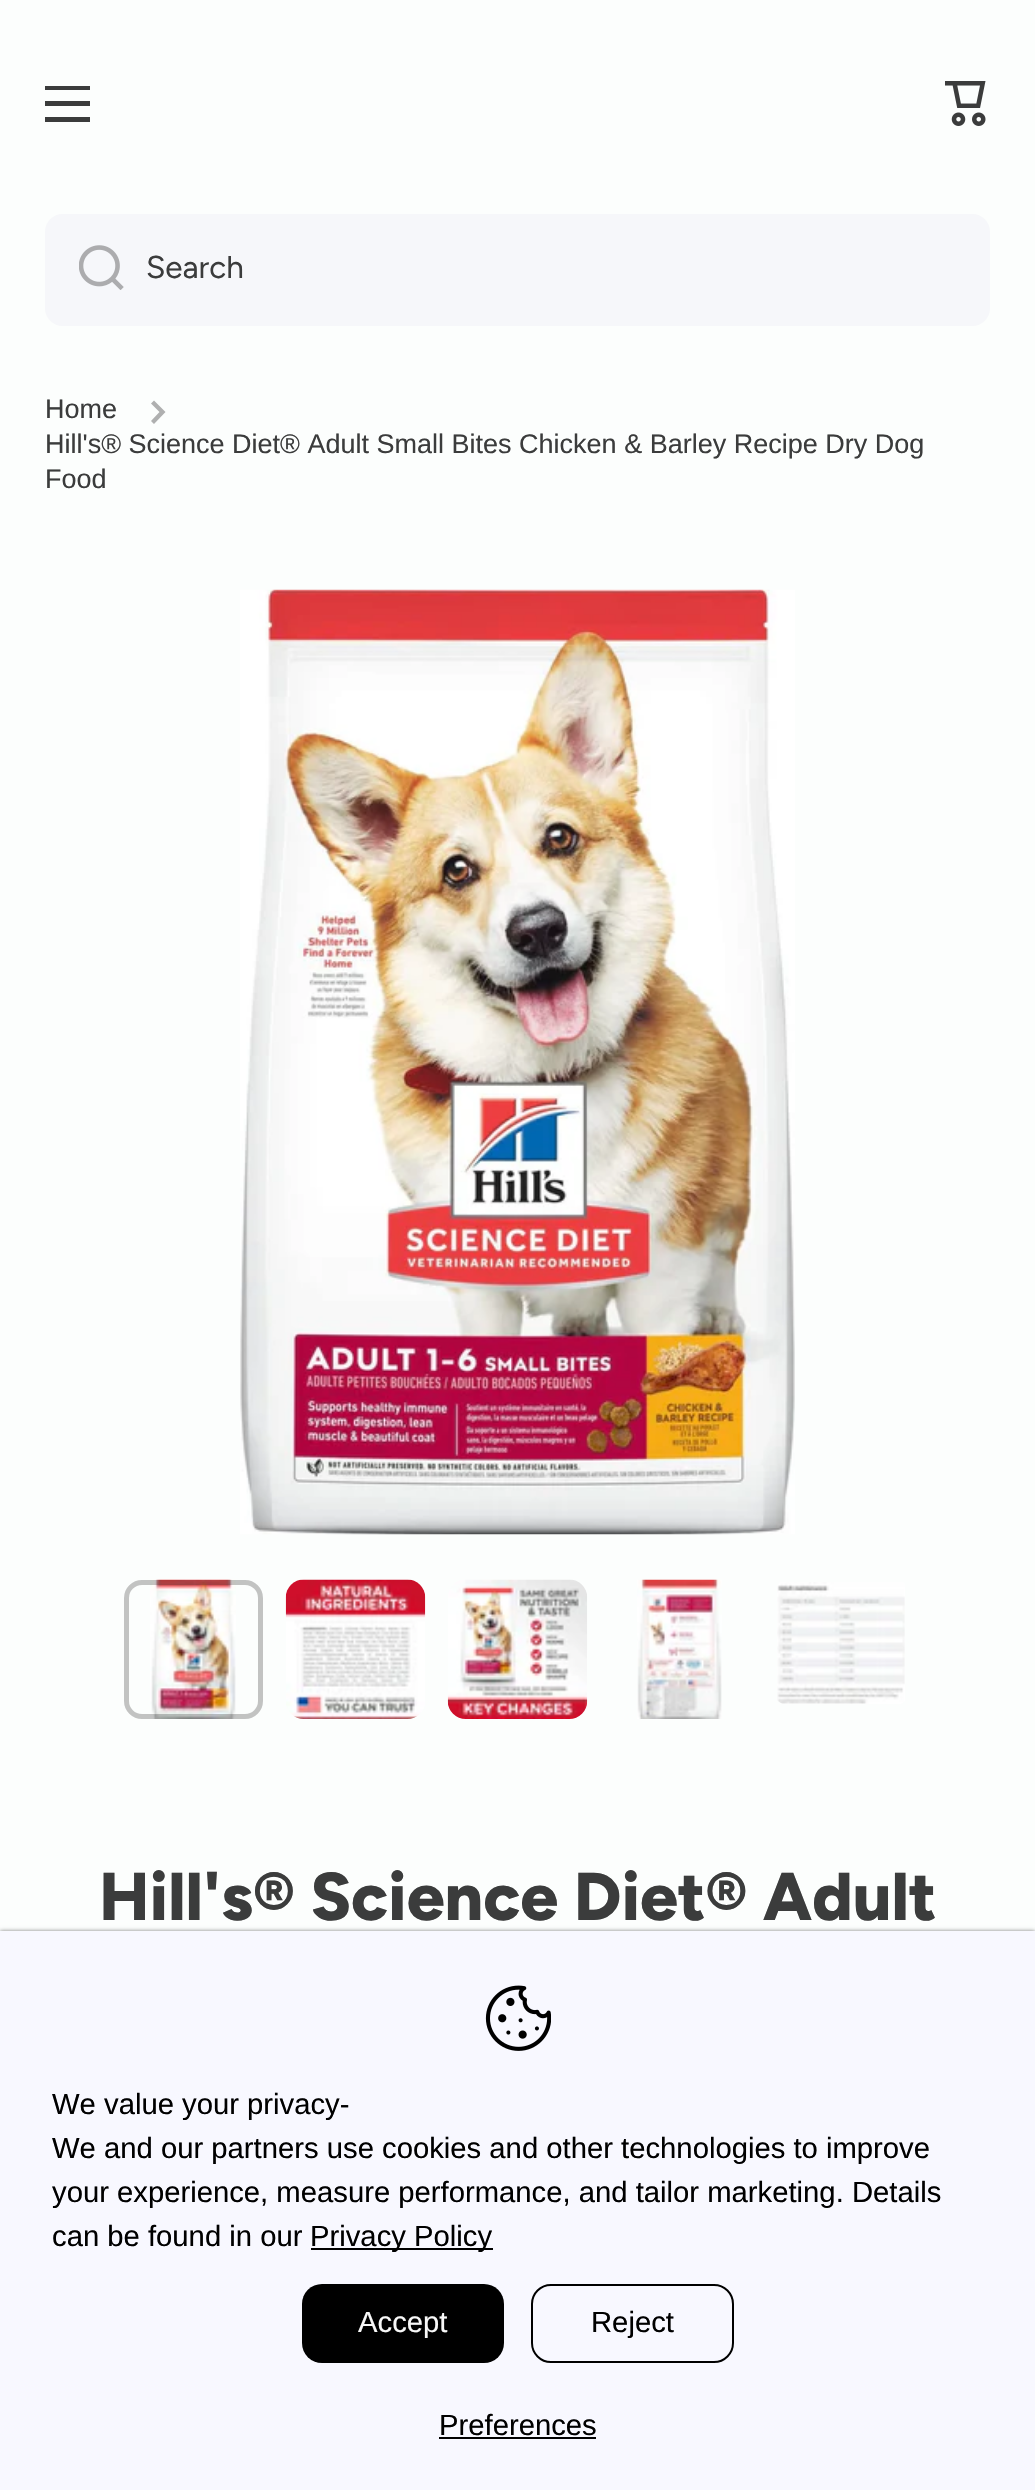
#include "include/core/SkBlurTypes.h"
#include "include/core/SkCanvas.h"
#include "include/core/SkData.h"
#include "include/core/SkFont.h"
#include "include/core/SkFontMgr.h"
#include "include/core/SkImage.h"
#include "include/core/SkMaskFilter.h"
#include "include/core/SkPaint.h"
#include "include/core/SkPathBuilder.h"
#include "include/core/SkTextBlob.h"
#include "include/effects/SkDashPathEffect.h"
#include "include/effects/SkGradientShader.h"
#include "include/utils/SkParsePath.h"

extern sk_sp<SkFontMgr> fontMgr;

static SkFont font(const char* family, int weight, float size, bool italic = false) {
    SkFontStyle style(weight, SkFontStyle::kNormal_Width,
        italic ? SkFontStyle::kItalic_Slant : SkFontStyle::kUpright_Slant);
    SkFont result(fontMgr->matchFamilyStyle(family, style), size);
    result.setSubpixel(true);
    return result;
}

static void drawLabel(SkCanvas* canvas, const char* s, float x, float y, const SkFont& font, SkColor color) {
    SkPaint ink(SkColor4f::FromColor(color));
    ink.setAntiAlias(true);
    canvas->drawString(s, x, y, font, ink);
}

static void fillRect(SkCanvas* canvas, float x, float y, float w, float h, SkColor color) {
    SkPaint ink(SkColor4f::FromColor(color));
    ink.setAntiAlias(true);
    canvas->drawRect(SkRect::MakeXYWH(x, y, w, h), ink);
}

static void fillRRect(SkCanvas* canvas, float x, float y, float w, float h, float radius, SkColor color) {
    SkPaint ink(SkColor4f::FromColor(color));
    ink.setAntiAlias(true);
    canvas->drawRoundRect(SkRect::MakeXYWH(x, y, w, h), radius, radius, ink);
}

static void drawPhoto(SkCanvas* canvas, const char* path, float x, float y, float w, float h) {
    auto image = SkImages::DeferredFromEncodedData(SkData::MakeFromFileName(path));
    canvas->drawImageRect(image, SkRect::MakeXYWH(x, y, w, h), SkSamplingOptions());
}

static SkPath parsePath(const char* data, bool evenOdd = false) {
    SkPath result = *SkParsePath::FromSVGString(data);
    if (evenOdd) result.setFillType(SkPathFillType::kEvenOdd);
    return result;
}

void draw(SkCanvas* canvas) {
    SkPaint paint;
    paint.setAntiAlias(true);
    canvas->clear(0xFFFCFEFD);
    fillRect(canvas, 45, 86, 45, 4, 0xFF3B3C3C);
    fillRect(canvas, 45, 101, 45, 5, 0xFF3B3C3C);
    fillRect(canvas, 45, 117, 45, 5, 0xFF3B3C3C);
    drawPhoto(canvas, "assets/img1.png", 945, 81, 41, 45);
    fillRRect(canvas, 45, 214, 945, 112, 18, 0xFFF6F7FA);
    drawPhoto(canvas, "assets/img2.png", 79, 245, 45, 45);
    SkFont font1 = font("Figtree", 300, 31.5f);
    drawLabel(canvas, "Search", 146, 278, font1, 0xFF3B3C3C);
    SkFont font2 = font("Liberation Sans", 400, 27);
    drawLabel(canvas, "Home", 45, 418, font2, 0xFF3B3C3C);
    paint.setColor(0xFFAFB0B0);
    canvas->drawPath(parsePath("M159.5 412L151 403.5L154 400.5L165.5 412L154 424L151 421Z", true), paint);
    drawLabel(canvas, "Hill's® Science Diet® Adult Small Bites Chicken & Barley Recipe Dry Dog", 45, 453, font2, 0xFF3B3C3C);
    drawLabel(canvas, "Food", 45, 488, font2, 0xFF3B3C3C);
    drawPhoto(canvas, "assets/img3.png", 240, 589, 555, 946);
    drawPhoto(canvas, "assets/img4.png", 150, 1579, 86, 140);
    paint.setStroke(true);
    paint.setStrokeWidth(5);
    paint.setColor(0x4D3B3C3C);
    canvas->drawRoundRect(SkRect::MakeXYWH(126.5f, 1582.5f, 134, 134), 15.5f, 15.5f, paint);
    drawPhoto(canvas, "assets/img5.png", 285, 1579, 141, 140);
    drawPhoto(canvas, "assets/img6.png", 447, 1579, 141, 140);
    drawPhoto(canvas, "assets/img7.png", 637, 1579, 85, 140);
    drawPhoto(canvas, "assets/img8.png", 777, 1582, 128, 122);
    SkFont font3 = font("Figtree", 800, 67.5f);
    drawLabel(canvas, "Hill's® Science Diet® Adult", 99, 1920, font3, 0xFF3B3C3C);
    paint.setStroke(false);
    paint.setColor(0x80000000);
    paint.setMaskFilter(SkMaskFilter::MakeBlur(kNormal_SkBlurStyle, 2));
    canvas->drawRect(SkRect::MakeXYWH(0, 1931, 1035, 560), paint);
    paint.setMaskFilter(nullptr);
    fillRect(canvas, 0, 1931, 1035, 559, 0xFFF8F8FF);
    drawPhoto(canvas, "assets/img9.png", 485, 1985, 66, 66);
    SkFont font4 = font("Liberation Sans", 400, 29.25f);
    drawLabel(canvas, "We value your privacy-", 52, 2114, font4, 0xFF000000);
    drawLabel(canvas, "We and our partners use cookies and other technologies to improve", 52, 2158, font4, 0xFF000000);
    drawLabel(canvas, "your experience, measure performance, and tailor marketing. Details", 52, 2202, font4, 0xFF000000);
    drawLabel(canvas, "can be found in our", 52, 2246, font4, 0xFF000000);
    fillRect(canvas, 311, 2248, 182, 2, 0xFF000000);
    drawLabel(canvas, "Privacy Policy", 310, 2246, font4, 0xFF000000);
    fillRRect(canvas, 302, 2284, 202, 79, 20, 0xFF000000);
    drawLabel(canvas, "Accept", 358, 2332, font4, 0xFFF8F8F8);
    paint.setStroke(true);
    paint.setStrokeWidth(2);
    paint.setColor(0xFF000000);
    canvas->drawRoundRect(SkRect::MakeXYWH(532, 2285, 201, 77), 19, 19, paint);
    drawLabel(canvas, "Reject", 591, 2332, font4, 0xFF000000);
    drawLabel(canvas, "Preferences", 439, 2435, font4, 0xFF000000);
    fillRect(canvas, 439, 2437, 157, 2, 0xFF000000);
}
